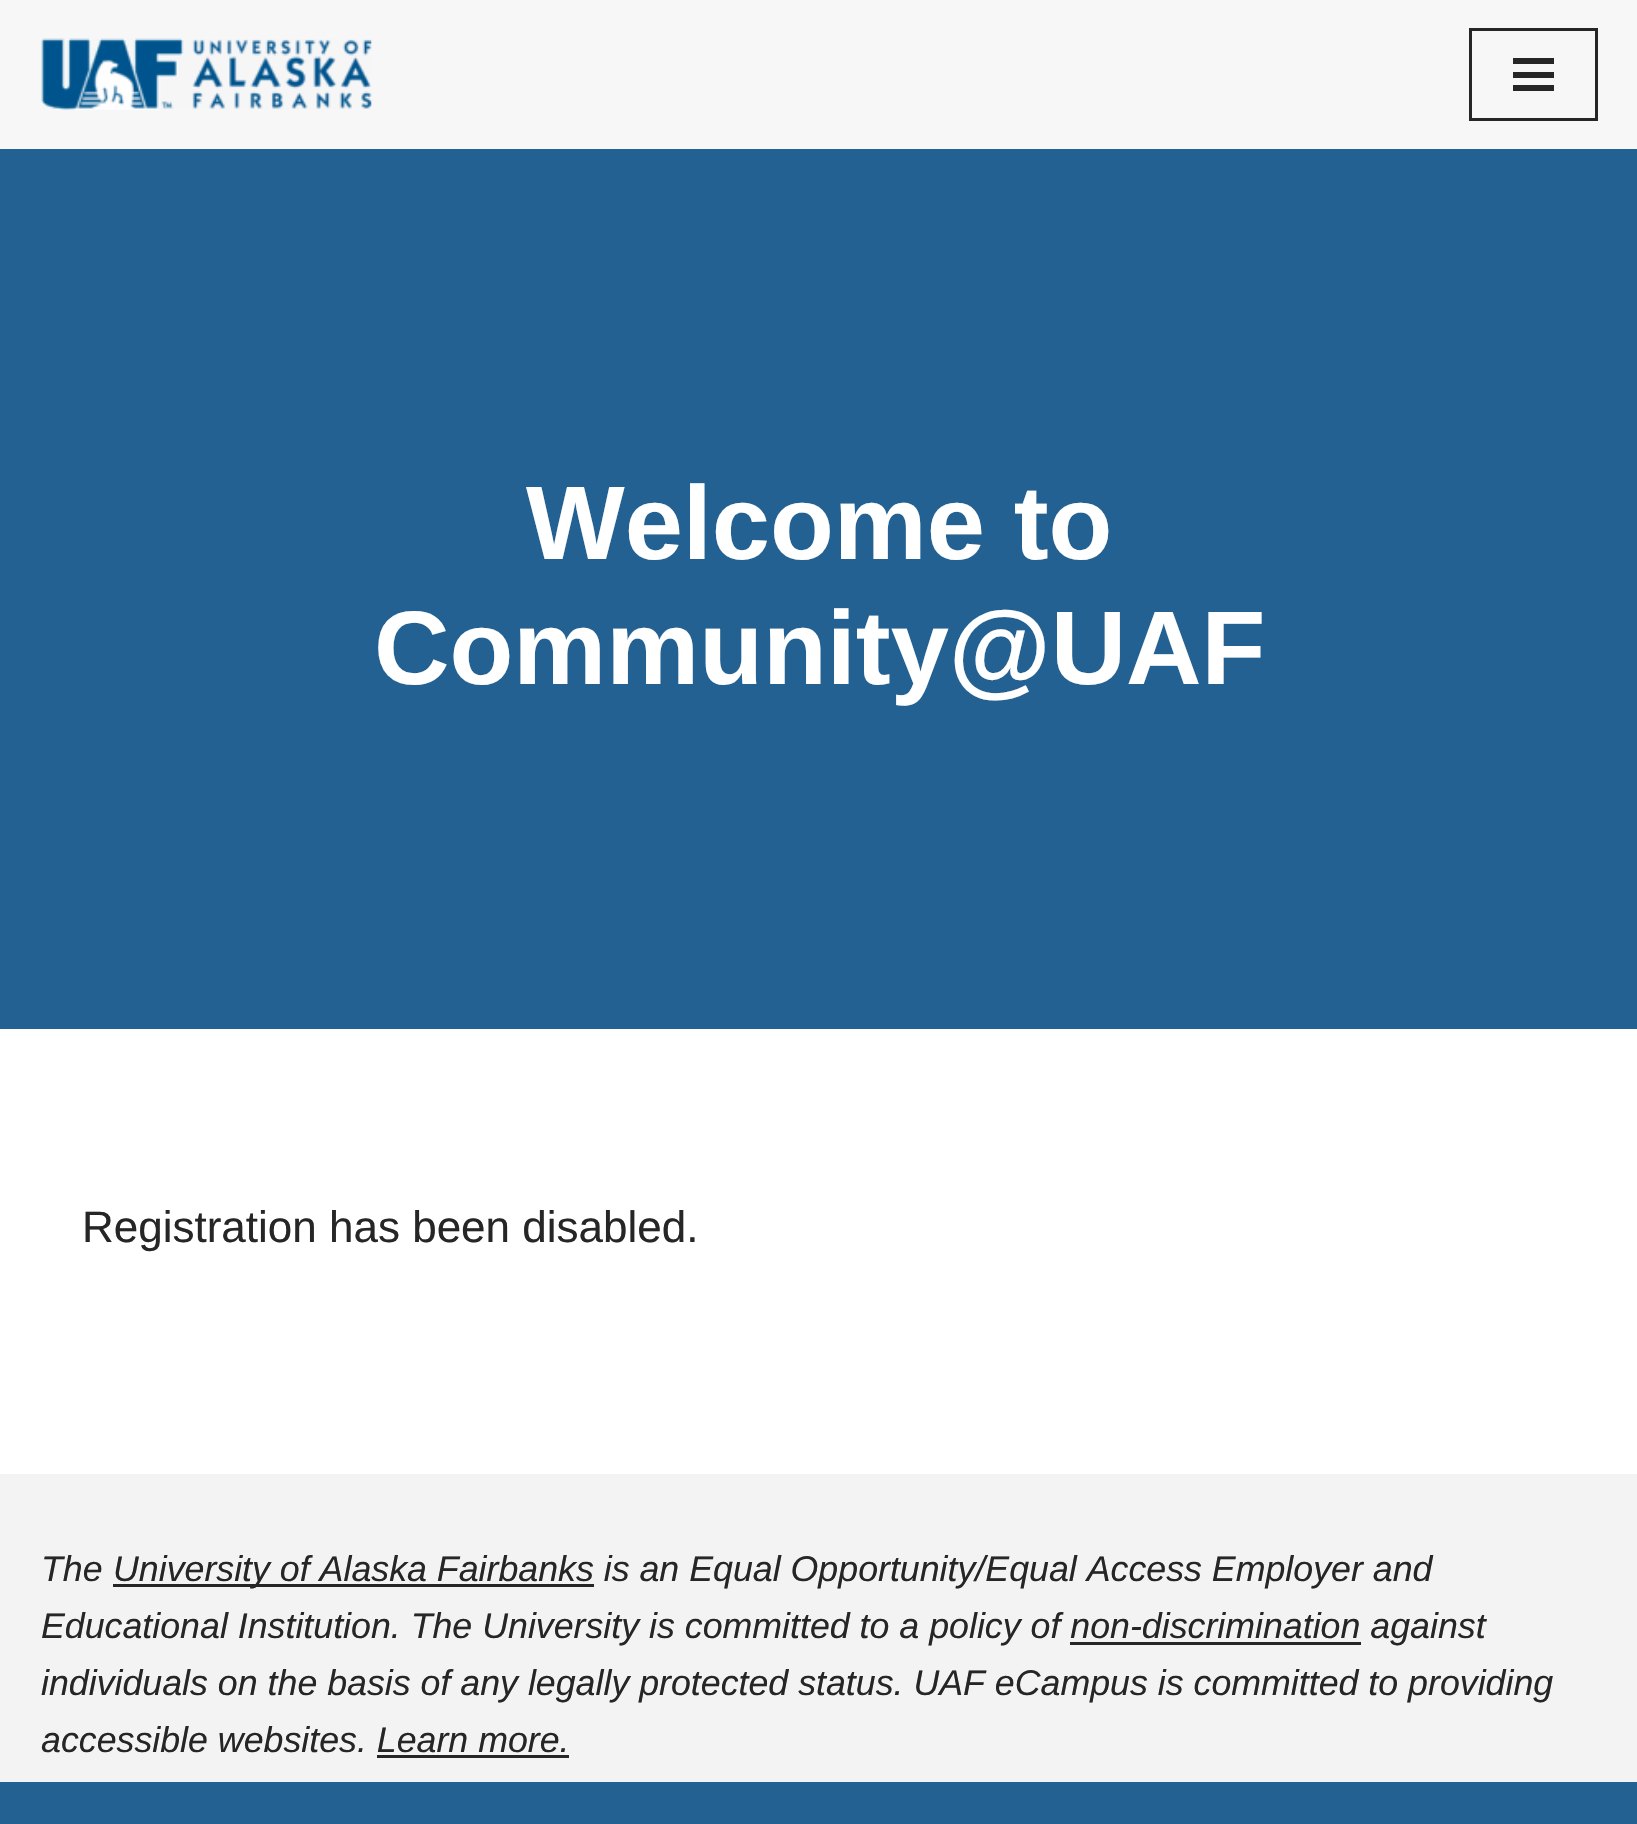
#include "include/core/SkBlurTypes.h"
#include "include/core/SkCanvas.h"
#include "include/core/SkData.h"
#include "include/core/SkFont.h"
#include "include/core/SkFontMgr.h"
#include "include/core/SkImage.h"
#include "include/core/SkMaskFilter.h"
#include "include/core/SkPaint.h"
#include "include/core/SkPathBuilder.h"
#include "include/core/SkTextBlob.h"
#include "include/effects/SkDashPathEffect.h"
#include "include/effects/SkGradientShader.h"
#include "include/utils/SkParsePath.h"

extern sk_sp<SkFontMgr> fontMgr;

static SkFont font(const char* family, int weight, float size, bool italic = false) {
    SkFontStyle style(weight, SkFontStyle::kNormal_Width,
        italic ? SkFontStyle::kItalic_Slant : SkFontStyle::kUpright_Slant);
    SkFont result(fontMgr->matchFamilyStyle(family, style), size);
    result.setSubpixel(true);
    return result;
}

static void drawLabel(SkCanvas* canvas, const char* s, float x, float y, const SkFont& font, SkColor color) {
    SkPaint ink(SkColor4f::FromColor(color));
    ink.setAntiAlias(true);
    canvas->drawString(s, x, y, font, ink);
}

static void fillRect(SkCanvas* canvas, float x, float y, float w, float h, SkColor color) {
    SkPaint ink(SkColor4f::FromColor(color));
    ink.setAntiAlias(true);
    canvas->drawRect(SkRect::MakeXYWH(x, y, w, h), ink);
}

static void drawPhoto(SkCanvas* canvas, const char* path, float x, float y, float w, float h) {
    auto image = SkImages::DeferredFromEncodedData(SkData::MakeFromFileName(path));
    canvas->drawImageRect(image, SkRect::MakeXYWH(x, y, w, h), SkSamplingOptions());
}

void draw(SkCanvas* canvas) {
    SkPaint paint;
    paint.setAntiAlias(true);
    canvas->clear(0xFFFFFFFF);
    fillRect(canvas, 0, 0, 1637, 149, 0xFFF7F7F7);
    drawPhoto(canvas, "assets/img1.png", 41, 38, 331, 72);
    paint.setStroke(true);
    paint.setStrokeWidth(3);
    paint.setColor(0xFF272626);
    canvas->drawRect(SkRect::MakeXYWH(1470.5f, 29.5f, 126, 90), paint);
    fillRect(canvas, 1513, 58, 41, 6, 0xFF272626);
    fillRect(canvas, 1513, 72, 41, 6, 0xFF272626);
    fillRect(canvas, 1513, 85, 41, 6, 0xFF272626);
    fillRect(canvas, 0, 149, 1637, 880, 0xFF236192);
    SkFont font1 = font("Liberation Sans", 700, 104.5f);
    drawLabel(canvas, "Welcome to", 526, 559, font1, 0xFFFFFFFF);
    drawLabel(canvas, "Community@UAF", 374, 684, font1, 0xFFFFFFFF);
    SkFont font2 = font("Liberation Sans", 400, 44);
    drawLabel(canvas, "Registration has been disabled.", 82, 1242, font2, 0xFF272626);
    fillRect(canvas, 0, 1474, 1637, 308, 0xFFF3F3F3);
    SkFont font3 = font("Liberation Sans", 400, 35.75f, true);
    drawLabel(canvas, "The", 41, 1581, font3, 0xFF272626);
    fillRect(canvas, 113, 1584, 481, 3, 0xFF272626);
    drawLabel(canvas, "University of Alaska Fairbanks is an Equal Opportunity/Equal Access Employer and", 113, 1581, font3, 0xFF272626);
    drawLabel(canvas, "Educational Institution. The University is committed to a policy of non-discrimination against", 41, 1638, font3, 0xFF272626);
    fillRect(canvas, 1070, 1642, 291, 3, 0xFF272626);
    drawLabel(canvas, "individuals on the basis of any legally protected status. UAF eCampus is committed to providing", 41, 1695, font3, 0xFF272626);
    drawLabel(canvas, "accessible websites. Learn more.", 41, 1752, font3, 0xFF272626);
    fillRect(canvas, 377, 1755, 192, 3, 0xFF272626);
    fillRect(canvas, 0, 1782, 1637, 42, 0xFF236192);
}
